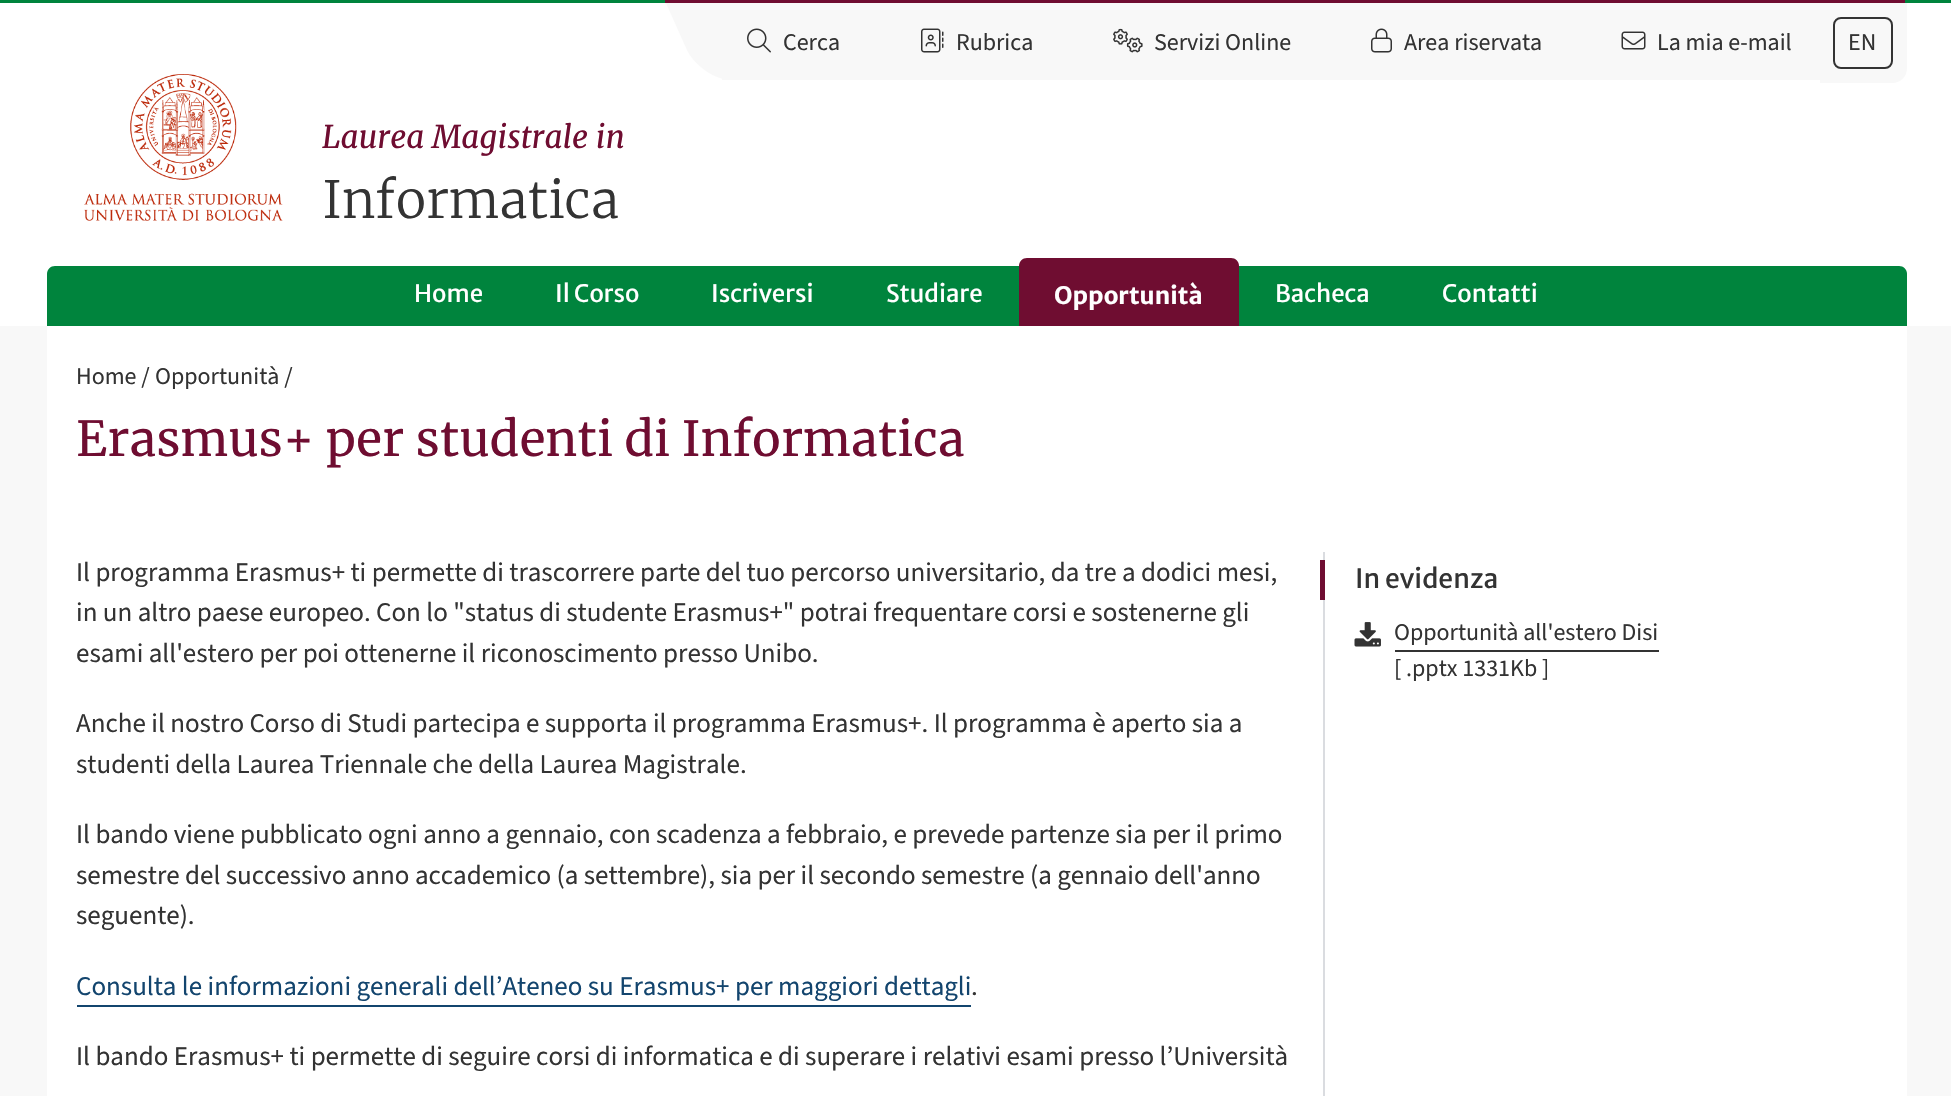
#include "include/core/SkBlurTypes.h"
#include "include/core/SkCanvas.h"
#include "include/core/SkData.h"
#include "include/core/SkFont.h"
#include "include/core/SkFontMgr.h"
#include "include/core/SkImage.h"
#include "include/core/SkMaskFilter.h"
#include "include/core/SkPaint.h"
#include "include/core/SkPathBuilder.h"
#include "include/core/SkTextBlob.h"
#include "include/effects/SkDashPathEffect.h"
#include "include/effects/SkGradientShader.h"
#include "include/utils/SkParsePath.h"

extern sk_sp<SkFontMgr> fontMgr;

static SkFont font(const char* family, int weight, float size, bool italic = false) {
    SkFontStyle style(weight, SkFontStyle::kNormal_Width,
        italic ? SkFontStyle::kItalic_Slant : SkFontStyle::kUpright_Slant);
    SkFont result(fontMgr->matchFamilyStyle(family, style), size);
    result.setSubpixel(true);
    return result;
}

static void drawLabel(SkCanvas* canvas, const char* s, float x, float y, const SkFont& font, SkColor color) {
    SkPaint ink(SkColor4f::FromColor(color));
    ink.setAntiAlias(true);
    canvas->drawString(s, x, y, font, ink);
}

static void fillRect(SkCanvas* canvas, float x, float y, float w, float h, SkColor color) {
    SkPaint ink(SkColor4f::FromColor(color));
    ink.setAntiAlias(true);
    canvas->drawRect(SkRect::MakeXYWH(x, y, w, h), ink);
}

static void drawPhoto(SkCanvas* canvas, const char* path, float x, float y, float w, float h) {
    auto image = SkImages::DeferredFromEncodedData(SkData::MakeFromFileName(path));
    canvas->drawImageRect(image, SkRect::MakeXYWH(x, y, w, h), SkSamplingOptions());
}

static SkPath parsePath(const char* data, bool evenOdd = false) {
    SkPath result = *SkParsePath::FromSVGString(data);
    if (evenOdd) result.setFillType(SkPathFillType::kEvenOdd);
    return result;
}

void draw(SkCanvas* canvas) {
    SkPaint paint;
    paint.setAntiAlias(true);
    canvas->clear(0xFFFFFFFF);
    fillRect(canvas, 0, 0, 1951, 3, 0xFF00843D);
    fillRect(canvas, 665, 0, 1240, 3, 0xFF6F0D31);
    fillRect(canvas, 722, 3, 1098, 77, 0xFFF8F8F8);
    paint.setColor(0xFFF8F8F8);
    canvas->drawPath(parsePath("M666 3H786C802 3 822 16 830 33L851 80H731C715 80 695 66 687 50Z"), paint);
    drawPhoto(canvas, "assets/img1.png", 921, 28, 23, 25);
    SkFont font1 = font("Source Sans 3", 400, 24);
    drawLabel(canvas, "Rubrica", 956, 50, font1, 0xFF333333);
    drawPhoto(canvas, "assets/img2.png", 1113, 28, 30, 25);
    drawLabel(canvas, "Servizi Online", 1154, 50, font1, 0xFF333333);
    drawPhoto(canvas, "assets/img3.png", 1371, 28, 21, 25);
    drawLabel(canvas, "Area riservata", 1404, 50, font1, 0xFF333333);
    drawPhoto(canvas, "assets/img4.png", 1621, 31, 25, 19);
    drawLabel(canvas, "La mia e-mail", 1657, 50, font1, 0xFF333333);
    drawPhoto(canvas, "assets/img5.png", 747, 28, 24, 25);
    drawLabel(canvas, "Cerca", 783, 50, font1, 0xFF333333);
    canvas->drawPath(parsePath("M1820 3H1907V68C1907 76.5 1900.5 83 1892 83H1820Z"), paint);
    paint.setStroke(true);
    paint.setStrokeWidth(2);
    paint.setColor(0xFF333333);
    canvas->drawRoundRect(SkRect::MakeXYWH(1834, 18, 58, 50), 7, 7, paint);
    drawLabel(canvas, "EN", 1848, 50, font1, 0xFF333333);
    drawPhoto(canvas, "assets/img6.png", 84, 74, 199, 147);
    SkFont font2 = font("Merriweather", 400, 31.25f, true);
    drawLabel(canvas, "Laurea Magistrale in", 322, 148, font2, 0xFF6F0D31);
    SkFont font3 = font("Merriweather", 300, 51);
    drawLabel(canvas, "Informatica", 322, 218, font3, 0xFF333333);
    paint.setStroke(false);
    paint.setColor(0xFF00843D);
    canvas->drawPath(parsePath("M55 266H1899C1903.5 266 1907 269.5 1907 274V326H47V274C47 269.5 50.5 266 55 266Z"), paint);
    SkFont font4 = font("Merriweather Sans", 400, 24);
    drawLabel(canvas, "Home", 414, 302, font4, 0xFFFFFFFF);
    drawLabel(canvas, "Il Corso", 555, 302, font4, 0xFFFFFFFF);
    drawLabel(canvas, "Iscriversi", 711, 302, font4, 0xFFFFFFFF);
    drawLabel(canvas, "Studiare", 886, 302, font4, 0xFFFFFFFF);
    paint.setColor(0xFF6F0D31);
    canvas->drawPath(parsePath("M1027 258H1231C1235.5 258 1239 261.5 1239 266V326H1019V266C1019 261.5 1022.5 258 1027 258Z"), paint);
    SkFont font5 = font("Merriweather Sans", 700, 24);
    drawLabel(canvas, "Opportunità", 1054, 304, font5, 0xFFFFFFFF);
    drawLabel(canvas, "Bacheca", 1275, 302, font4, 0xFFFFFFFF);
    drawLabel(canvas, "Contatti", 1442, 302, font4, 0xFFFFFFFF);
    fillRect(canvas, 0, 326, 1951, 770, 0xFFF8F8F8);
    fillRect(canvas, 47, 326, 1860, 770, 0xFFFFFFFF);
    drawLabel(canvas, "Home /", 76, 384, font1, 0xFF333333);
    drawLabel(canvas, "Opportunità /", 155, 384, font1, 0xFF333333);
    SkFont font6 = font("Merriweather", 400, 48);
    drawLabel(canvas, "Erasmus+ per studenti di Informatica", 76, 456, font6, 0xFF6F0D31);
    fillRect(canvas, 1323, 552, 2, 544, 0xFFDADCE0);
    SkFont font7 = font("Source Sans 3", 400, 27);
    drawLabel(canvas, "Il programma Erasmus+ ti permette di trascorrere parte del tuo percorso universitario, da tre a dodici mesi,", 76, 581, font7, 0xFF333333);
    drawLabel(canvas, "in un altro paese europeo. Con lo \"status di studente Erasmus+\" potrai frequentare corsi e sostenerne gli", 76, 621, font7, 0xFF333333);
    drawLabel(canvas, "esami all'estero per poi ottenerne il riconoscimento presso Unibo.", 76, 662, font7, 0xFF333333);
    drawLabel(canvas, "Anche il nostro Corso di Studi partecipa e supporta il programma Erasmus+. Il programma è aperto sia a", 76, 732, font7, 0xFF333333);
    drawLabel(canvas, "studenti della Laurea Triennale che della Laurea Magistrale.", 76, 773, font7, 0xFF333333);
    drawLabel(canvas, "Il bando viene pubblicato ogni anno a gennaio, con scadenza a febbraio, e prevede partenze sia per il primo", 76, 843, font7, 0xFF333333);
    drawLabel(canvas, "semestre del successivo anno accademico (a settembre), sia per il secondo semestre (a gennaio dell'anno", 76, 884, font7, 0xFF333333);
    drawLabel(canvas, "seguente).", 76, 924, font7, 0xFF333333);
    drawLabel(canvas, "Consulta le informazioni generali dell’Ateneo su Erasmus+ per maggiori dettagli", 76, 995, font7, 0xFF13456E);
    fillRect(canvas, 77, 1005, 894, 2, 0xFF13456E);
    drawLabel(canvas, ".", 971, 995, font7, 0xFF333333);
    drawLabel(canvas, "Il bando Erasmus+ ti permette di seguire corsi di informatica e di superare i relativi esami presso l’Università", 76, 1065, font7, 0xFF333333);
    fillRect(canvas, 1320, 560, 5, 40, 0xFF6F0D31);
    SkFont font8 = font("Merriweather Sans", 400, 26.5f);
    drawLabel(canvas, "In evidenza", 1355, 588, font8, 0xFF333333);
    drawPhoto(canvas, "assets/img7.png", 1354, 622, 27, 25);
    drawLabel(canvas, "Opportunità all'estero Disi", 1394, 640, font1, 0xFF333333);
    fillRect(canvas, 1395, 650, 264, 2, 0xFF333333);
    drawLabel(canvas, "[ .pptx 1331Kb ]", 1394, 676, font1, 0xFF333333);
}
